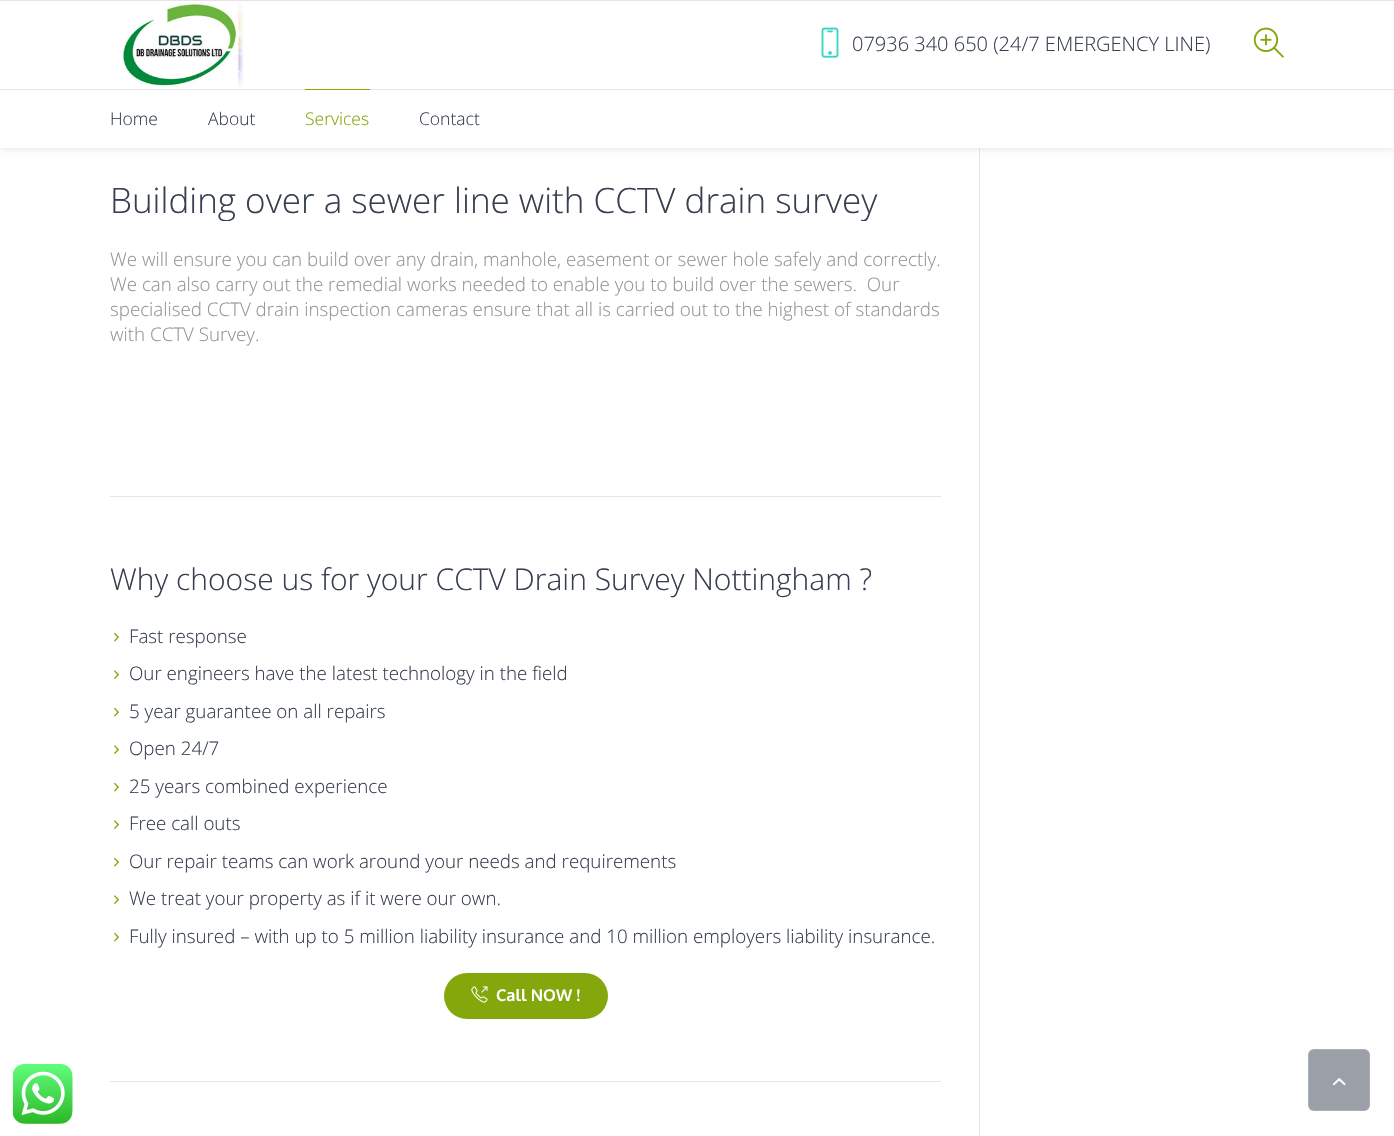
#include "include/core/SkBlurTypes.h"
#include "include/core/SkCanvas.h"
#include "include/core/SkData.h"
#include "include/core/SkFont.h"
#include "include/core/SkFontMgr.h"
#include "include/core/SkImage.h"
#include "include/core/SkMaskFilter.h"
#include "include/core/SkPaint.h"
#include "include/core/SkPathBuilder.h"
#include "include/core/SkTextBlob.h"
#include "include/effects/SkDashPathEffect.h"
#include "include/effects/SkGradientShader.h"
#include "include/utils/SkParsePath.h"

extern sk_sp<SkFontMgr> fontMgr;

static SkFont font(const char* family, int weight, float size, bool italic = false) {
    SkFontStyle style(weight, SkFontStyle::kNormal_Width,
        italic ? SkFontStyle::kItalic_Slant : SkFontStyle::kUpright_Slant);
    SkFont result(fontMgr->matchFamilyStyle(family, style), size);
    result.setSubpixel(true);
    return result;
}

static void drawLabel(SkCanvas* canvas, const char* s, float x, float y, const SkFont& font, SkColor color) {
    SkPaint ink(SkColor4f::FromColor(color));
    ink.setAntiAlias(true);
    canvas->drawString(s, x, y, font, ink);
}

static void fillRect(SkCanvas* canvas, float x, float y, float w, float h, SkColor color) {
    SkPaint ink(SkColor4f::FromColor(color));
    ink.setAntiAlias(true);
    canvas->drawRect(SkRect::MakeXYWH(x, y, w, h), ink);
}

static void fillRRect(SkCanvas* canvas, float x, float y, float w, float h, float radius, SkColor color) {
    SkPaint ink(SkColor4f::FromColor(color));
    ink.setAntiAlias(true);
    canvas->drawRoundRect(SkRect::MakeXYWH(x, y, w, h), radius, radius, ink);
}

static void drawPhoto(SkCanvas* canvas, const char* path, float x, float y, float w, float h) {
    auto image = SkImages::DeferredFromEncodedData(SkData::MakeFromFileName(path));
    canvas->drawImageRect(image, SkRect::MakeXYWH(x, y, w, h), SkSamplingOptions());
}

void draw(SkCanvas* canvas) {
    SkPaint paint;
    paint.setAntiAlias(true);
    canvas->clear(0xFFFFFFFF);
    fillRect(canvas, 979, 148, 1, 988, 0xFFE5E5E5);
    paint.setColor(0x1A000000);
    paint.setMaskFilter(SkMaskFilter::MakeBlur(kNormal_SkBlurStyle, 3));
    canvas->drawRect(SkRect::MakeXYWH(0, 1, 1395, 148), paint);
    paint.setMaskFilter(nullptr);
    fillRect(canvas, 0, 0, 1394, 1, 0xFFE5E5E5);
    fillRect(canvas, 0, 1, 1394, 88, 0xFFFFFFFF);
    drawPhoto(canvas, "assets/img1.png", 122, 2, 122, 85);
    drawPhoto(canvas, "assets/img2.png", 821, 27, 18, 31);
    SkFont font1 = font("Open Sans", 300, 20);
    drawLabel(canvas, "07936 340 650 (24/7 EMERGENCY LINE)", 852, 51, font1, 0xFF373F50);
    drawPhoto(canvas, "assets/img3.png", 1253, 27, 31, 31);
    fillRect(canvas, 0, 89, 1394, 1, 0xFFE5E5E5);
    fillRect(canvas, 0, 90, 1394, 58, 0xFFFFFFFF);
    SkFont font2 = font("Open Sans", 300, 17.5f);
    drawLabel(canvas, "Home", 110, 125, font2, 0xFF373F50);
    drawLabel(canvas, "About", 208, 125, font2, 0xFF373F50);
    fillRect(canvas, 305, 89, 65, 1, 0xFF84A80B);
    drawLabel(canvas, "Services", 305, 125, font2, 0xFF84A80B);
    drawLabel(canvas, "Contact", 419, 125, font2, 0xFF373F50);
    canvas->save();
    canvas->clipRect(SkRect::MakeXYWH(110, 176, 831, 45));
    SkFont font3 = font("Open Sans", 300, 35);
    drawLabel(canvas, "Building over a sewer line with CCTV drain survey", 110, 213, font3, 0xFF373F50);
    canvas->restore();
    SkFont font4 = font("Open Sans", 300, 18.75f);
    drawLabel(canvas, "We will ensure you can build over any drain, manhole, easement or sewer hole safely and correctly.", 110, 266, font4, 0xFF959595);
    drawLabel(canvas, "We can also carry out the remedial works needed to enable you to build over the sewers.  Our", 110, 291, font4, 0xFF959595);
    drawLabel(canvas, "specialised CCTV drain inspection cameras ensure that all is carried out to the highest of standards", 110, 316, font4, 0xFF959595);
    drawLabel(canvas, "with CCTV Survey.", 110, 341, font4, 0xFF959595);
    fillRect(canvas, 110, 496, 831, 1, 0xFFE5E5E5);
    SkFont font5 = font("Open Sans", 300, 30);
    drawLabel(canvas, "Why choose us for your CCTV Drain Survey Nottingham ?", 110, 590, font5, 0xFF373F50);
    drawPhoto(canvas, "assets/img4.png", 114, 632, 5, 10);
    drawLabel(canvas, "Fast response", 129, 643, font4, 0xFF373F50);
    drawPhoto(canvas, "assets/img5.png", 114, 670, 5, 9);
    drawLabel(canvas, "Our engineers have the latest technology in the field", 129, 680, font4, 0xFF373F50);
    drawPhoto(canvas, "assets/img4.png", 114, 707, 5, 10);
    drawLabel(canvas, "5 year guarantee on all repairs", 129, 718, font4, 0xFF373F50);
    drawPhoto(canvas, "assets/img5.png", 114, 745, 5, 9);
    drawLabel(canvas, "Open 24/7", 129, 755, font4, 0xFF373F50);
    drawPhoto(canvas, "assets/img4.png", 114, 782, 5, 10);
    drawLabel(canvas, "25 years combined experience", 129, 793, font4, 0xFF373F50);
    drawPhoto(canvas, "assets/img5.png", 114, 820, 5, 9);
    drawLabel(canvas, "Free call outs", 129, 830, font4, 0xFF373F50);
    drawPhoto(canvas, "assets/img4.png", 114, 857, 5, 10);
    drawLabel(canvas, "Our repair teams can work around your needs and requirements", 129, 868, font4, 0xFF373F50);
    drawPhoto(canvas, "assets/img5.png", 114, 895, 5, 9);
    drawLabel(canvas, "We treat your property as if it were our own.", 129, 905, font4, 0xFF373F50);
    drawPhoto(canvas, "assets/img4.png", 114, 932, 5, 10);
    drawLabel(canvas, "Fully insured – with up to 5 million liability insurance and 10 million employers liability insurance.", 129, 943, font4, 0xFF373F50);
    fillRRect(canvas, 444, 973, 164, 46, 23, 0xFF84A80B);
    drawPhoto(canvas, "assets/img6.png", 471, 986, 17, 17);
    SkFont font6 = font("Oxygen", 700, 16.25f);
    drawLabel(canvas, "Call NOW !", 496, 1001, font6, 0xFFFFFFFF);
    fillRect(canvas, 110, 1081, 831, 1, 0xFFE5E5E5);
    fillRRect(canvas, 1308, 1049, 62, 62, 6, 0xFF9B9FA8);
    paint.setStroke(true);
    paint.setStrokeWidth(1);
    paint.setColor(0x26FFFFFF);
    canvas->drawRoundRect(SkRect::MakeXYWH(1308.5f, 1049.5f, 61, 61), 5.5f, 5.5f, paint);
    drawPhoto(canvas, "assets/img7.png", 1332, 1078, 14, 8);
    drawPhoto(canvas, "assets/img8.png", 13, 1064, 60, 60);
}
